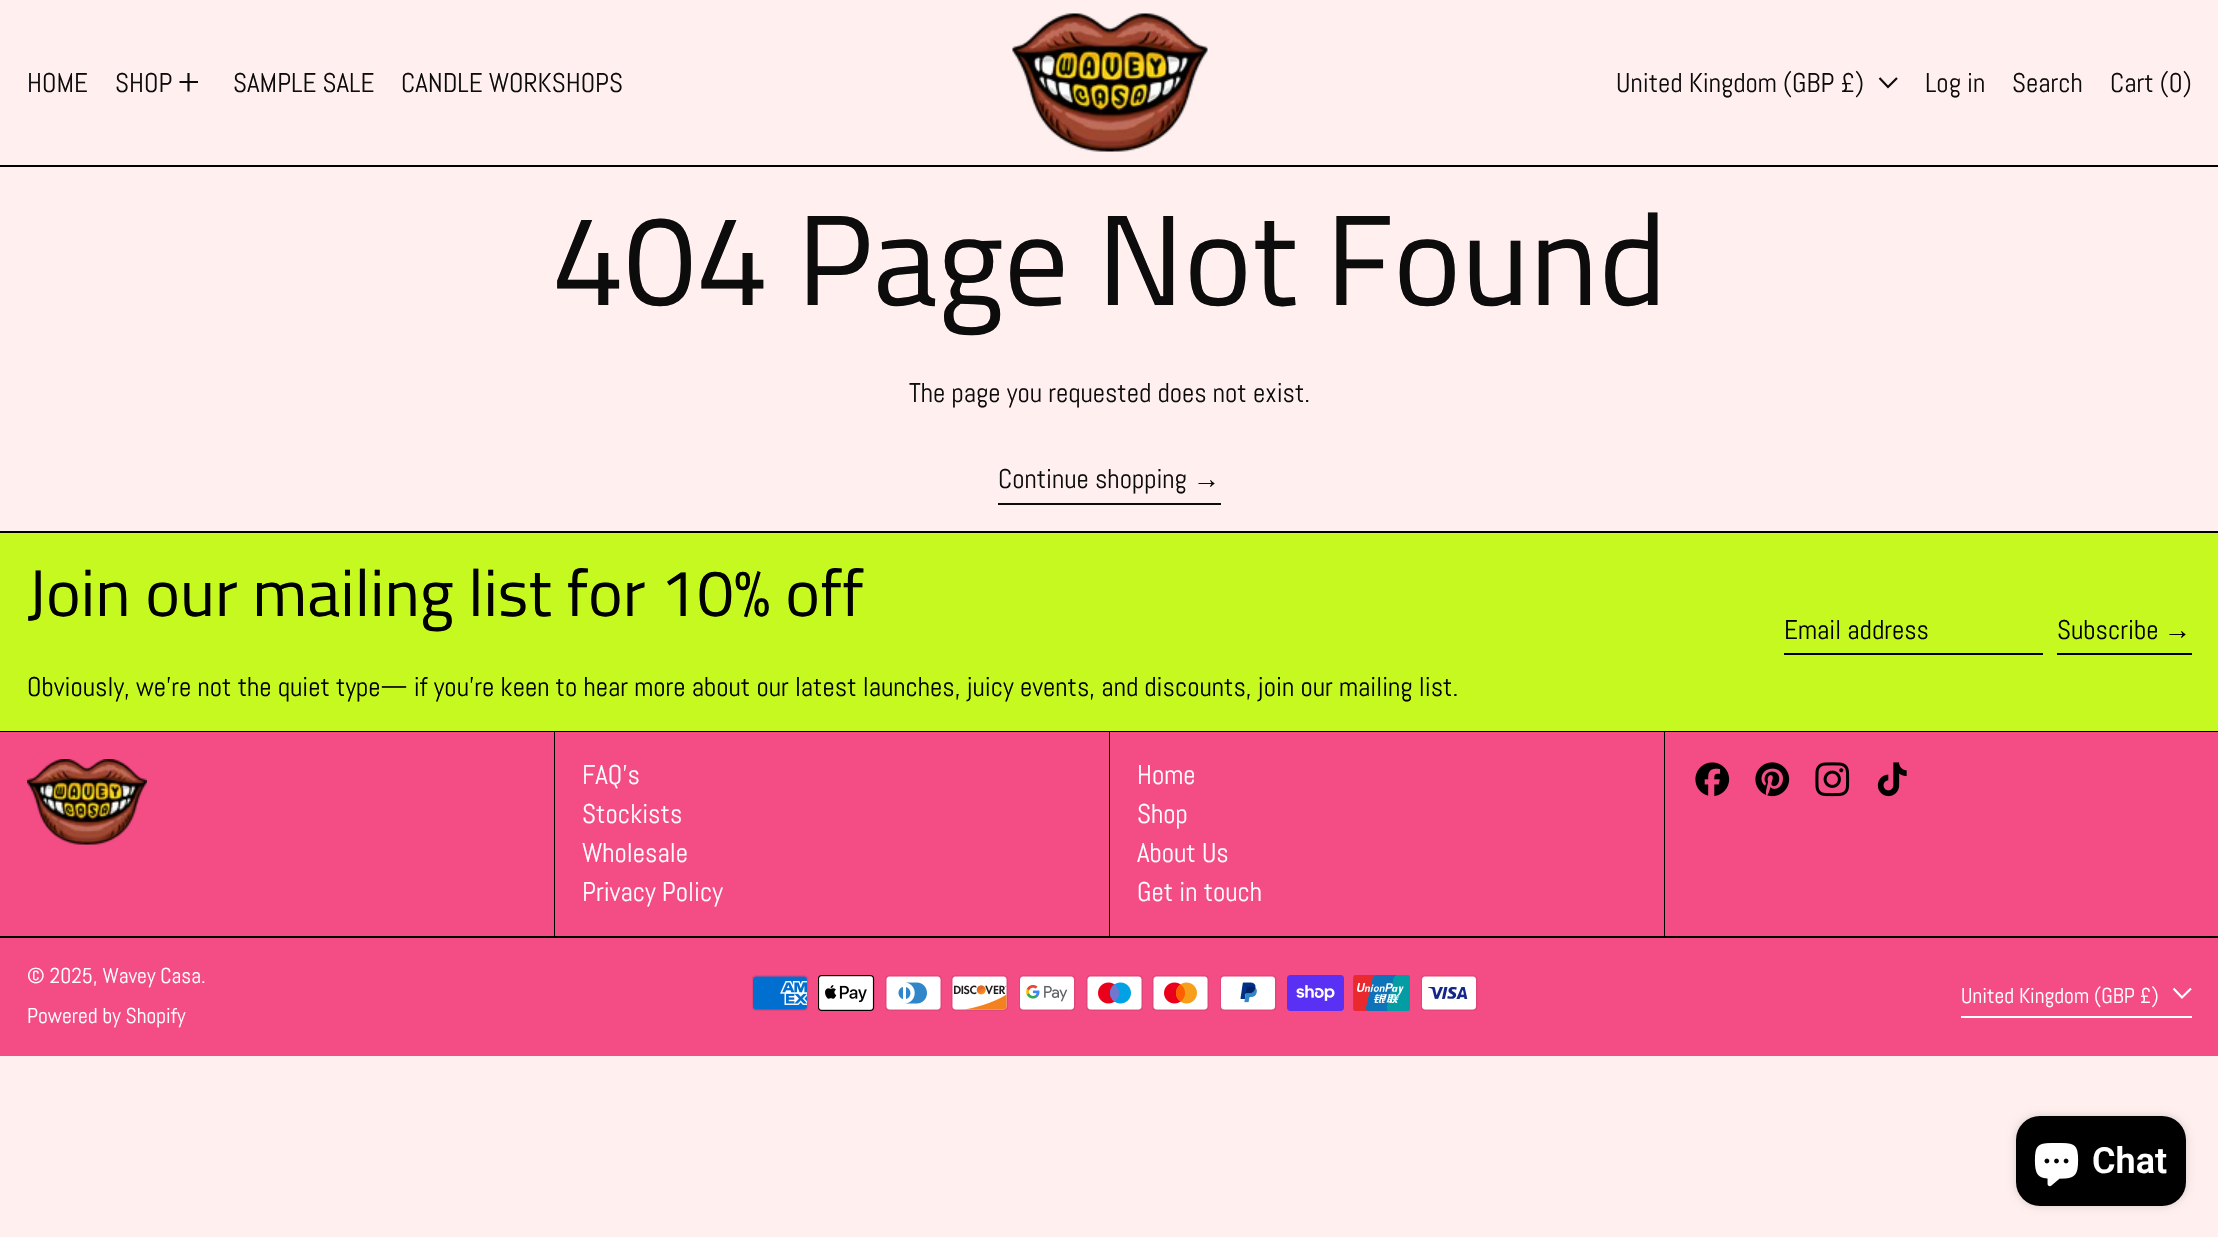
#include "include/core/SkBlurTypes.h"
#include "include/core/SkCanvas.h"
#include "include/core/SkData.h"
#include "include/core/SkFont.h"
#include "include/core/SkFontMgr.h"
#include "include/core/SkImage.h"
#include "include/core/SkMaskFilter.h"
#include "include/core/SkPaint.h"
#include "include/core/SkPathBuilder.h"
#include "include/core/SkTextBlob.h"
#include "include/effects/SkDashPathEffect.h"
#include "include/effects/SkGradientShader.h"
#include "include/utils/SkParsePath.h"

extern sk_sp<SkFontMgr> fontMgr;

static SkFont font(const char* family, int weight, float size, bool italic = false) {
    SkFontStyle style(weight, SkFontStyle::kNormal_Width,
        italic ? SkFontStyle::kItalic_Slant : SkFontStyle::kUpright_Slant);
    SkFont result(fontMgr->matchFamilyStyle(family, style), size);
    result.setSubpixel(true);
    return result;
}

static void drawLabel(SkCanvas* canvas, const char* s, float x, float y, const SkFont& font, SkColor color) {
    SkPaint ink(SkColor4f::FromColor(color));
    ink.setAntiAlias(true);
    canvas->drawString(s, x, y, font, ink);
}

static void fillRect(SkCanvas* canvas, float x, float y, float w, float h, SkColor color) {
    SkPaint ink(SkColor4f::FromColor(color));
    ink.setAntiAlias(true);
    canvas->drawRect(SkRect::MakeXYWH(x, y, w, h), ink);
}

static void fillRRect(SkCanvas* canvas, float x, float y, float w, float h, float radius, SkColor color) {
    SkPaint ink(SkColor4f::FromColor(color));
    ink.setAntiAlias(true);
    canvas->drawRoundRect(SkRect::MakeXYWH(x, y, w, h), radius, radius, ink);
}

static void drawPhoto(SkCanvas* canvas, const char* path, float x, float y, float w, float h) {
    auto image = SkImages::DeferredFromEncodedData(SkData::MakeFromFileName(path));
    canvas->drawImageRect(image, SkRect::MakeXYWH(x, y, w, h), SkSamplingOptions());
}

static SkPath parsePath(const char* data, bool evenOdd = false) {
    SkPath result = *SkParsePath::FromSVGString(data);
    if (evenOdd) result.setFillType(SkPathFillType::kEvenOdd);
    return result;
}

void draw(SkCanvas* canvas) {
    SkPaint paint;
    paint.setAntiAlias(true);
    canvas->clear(0xFFFFEFEF);
    fillRect(canvas, 0, 165, 2218, 2, 0xFF000000);
    SkFont font1 = font("Abel", 400, 27);
    drawLabel(canvas, "HOME", 27, 92, font1, 0xFF0D0C0C);
    drawLabel(canvas, "SHOP", 115, 92, font1, 0xFF0D0C0C);
    paint.setStroke(true);
    paint.setStrokeWidth(2.2f);
    paint.setColor(0xFF0D0C0C);
    canvas->drawPath(parsePath("M188.5 73V91.5M179.5 82H198"), paint);
    drawLabel(canvas, "SAMPLE SALE", 233, 92, font1, 0xFF0D0C0C);
    drawLabel(canvas, "CANDLE WORKSHOPS", 401, 92, font1, 0xFF0D0C0C);
    drawPhoto(canvas, "assets/img1.png", 1012, 13, 196, 139);
    drawLabel(canvas, "United Kingdom (GBP £)", 1616, 92, font1, 0xFF0D0C0C);
    canvas->drawPath(parsePath("M1879.5 78L1888 87L1897 78"), paint);
    drawLabel(canvas, "Log in", 1925, 92, font1, 0xFF0D0C0C);
    drawLabel(canvas, "Search", 2012, 92, font1, 0xFF0D0C0C);
    drawLabel(canvas, "Cart (0)", 2110, 92, font1, 0xFF0D0C0C);
    fillRect(canvas, 0, 531, 2218, 2, 0xFF000000);
    SkFont font2 = font("Titillium Web", 400, 128.75f);
    drawLabel(canvas, "404 Page Not Found", 552, 305, font2, 0xFF0D0C0C);
    drawLabel(canvas, "The page you requested does not exist.", 909, 402, font1, 0xFF0D0C0C);
    fillRect(canvas, 998, 503, 223, 2, 0xFF0D0C0C);
    drawLabel(canvas, "Continue shopping", 998, 488, font1, 0xFF0D0C0C);
    SkFont font3 = font("Liberation Sans", 400, 27);
    drawLabel(canvas, "→", 1193, 488, font3, 0xFF0D0C0C);
    fillRect(canvas, 0, 938, 2218, 118, 0xFFF44C84);
    fillRect(canvas, 0, 533, 2218, 198, 0xFFC6F91F);
    fillRect(canvas, 0, 731, 2218, 1, 0xFF000000);
    SkFont font4 = font("Titillium Web", 400, 65.9f);
    drawLabel(canvas, "Join our mailing list for 10% off", 27, 616, font4, 0xFF000000);
    drawLabel(canvas, "Obviously, we're not the quiet type— if you're keen to hear more about our latest launches, juicy events, and discounts, join our mailing list.", 27, 696, font1, 0xFF000000);
    fillRect(canvas, 1784, 653, 259, 2, 0xFF000000);
    drawLabel(canvas, "Email address", 1784, 639, font1, 0xFF000000);
    fillRect(canvas, 2057, 653, 135, 2, 0xFF000000);
    drawLabel(canvas, "Subscribe", 2057, 639, font1, 0xFF000000);
    drawLabel(canvas, "→", 2164, 639, font3, 0xFF000000);
    fillRect(canvas, 0, 936, 2218, 2, 0xFF000000);
    fillRect(canvas, 554, 732, 1111, 204, 0xFF000000);
    fillRect(canvas, 0, 732, 554, 204, 0xFFF44C84);
    drawPhoto(canvas, "assets/img2.png", 27, 759, 120, 86);
    fillRect(canvas, 555, 732, 554, 204, 0xFFF44C84);
    drawLabel(canvas, "FAQ's", 582, 784, font1, 0xFFFFFFFF);
    drawLabel(canvas, "Stockists", 582, 823, font1, 0xFFFFFFFF);
    drawLabel(canvas, "Wholesale", 582, 862, font1, 0xFFFFFFFF);
    drawLabel(canvas, "Privacy Policy", 582, 901, font1, 0xFFFFFFFF);
    fillRect(canvas, 1110, 732, 554, 204, 0xFFF44C84);
    drawLabel(canvas, "Home", 1137, 784, font1, 0xFFFFFFFF);
    drawLabel(canvas, "Shop", 1137, 823, font1, 0xFFFFFFFF);
    drawLabel(canvas, "About Us", 1137, 862, font1, 0xFFFFFFFF);
    drawLabel(canvas, "Get in touch", 1137, 901, font1, 0xFFFFFFFF);
    fillRect(canvas, 1665, 732, 553, 204, 0xFFF44C84);
    drawPhoto(canvas, "assets/img3.png", 1695, 762, 35, 34);
    drawPhoto(canvas, "assets/img4.png", 1755, 762, 35, 35);
    drawPhoto(canvas, "assets/img5.png", 1815, 762, 35, 35);
    drawPhoto(canvas, "assets/img6.png", 1877, 762, 30, 35);
    SkFont font5 = font("Abel", 400, 21.5f);
    drawLabel(canvas, "© 2025, Wavey Casa.", 27, 983, font5, 0xFFFFFFFF);
    drawLabel(canvas, "Powered by Shopify", 27, 1023, font5, 0xFFFFFFFF);
    drawPhoto(canvas, "assets/img7.png", 752, 975, 57, 36);
    drawPhoto(canvas, "assets/img8.png", 818, 975, 57, 36);
    drawPhoto(canvas, "assets/img9.png", 885, 975, 57, 36);
    drawPhoto(canvas, "assets/img10.png", 951, 975, 57, 36);
    drawPhoto(canvas, "assets/img11.png", 1019, 975, 57, 36);
    drawPhoto(canvas, "assets/img12.png", 1086, 975, 57, 36);
    drawPhoto(canvas, "assets/img13.png", 1152, 975, 57, 36);
    drawPhoto(canvas, "assets/img14.png", 1220, 975, 57, 36);
    drawPhoto(canvas, "assets/img15.png", 1287, 975, 57, 36);
    drawPhoto(canvas, "assets/img16.png", 1353, 975, 57, 36);
    drawPhoto(canvas, "assets/img17.png", 1421, 975, 57, 36);
    fillRect(canvas, 1961, 1016, 231, 2, 0xFFFFFFFF);
    drawLabel(canvas, "United Kingdom (GBP £)", 1961, 1003, font5, 0xFFFFFFFF);
    paint.setColor(0xFFFFFFFF);
    canvas->drawPath(parsePath("M2173.5 988.5L2182 997.5L2191 988.5"), paint);
    paint.setStroke(false);
    paint.setColor(0x26000000);
    paint.setMaskFilter(SkMaskFilter::MakeBlur(kNormal_SkBlurStyle, 4));
    canvas->drawRoundRect(SkRect::MakeXYWH(2016, 1116, 170, 90), 24, 24, paint);
    paint.setMaskFilter(nullptr);
    fillRRect(canvas, 2016, 1116, 170, 90, 24, 0xFF000000);
    drawPhoto(canvas, "assets/img18.png", 2034, 1143, 45, 44);
    SkFont font6 = font("Roboto", 600, 36);
    drawLabel(canvas, "Chat", 2092, 1173, font6, 0xFFFFFFFF);
}
